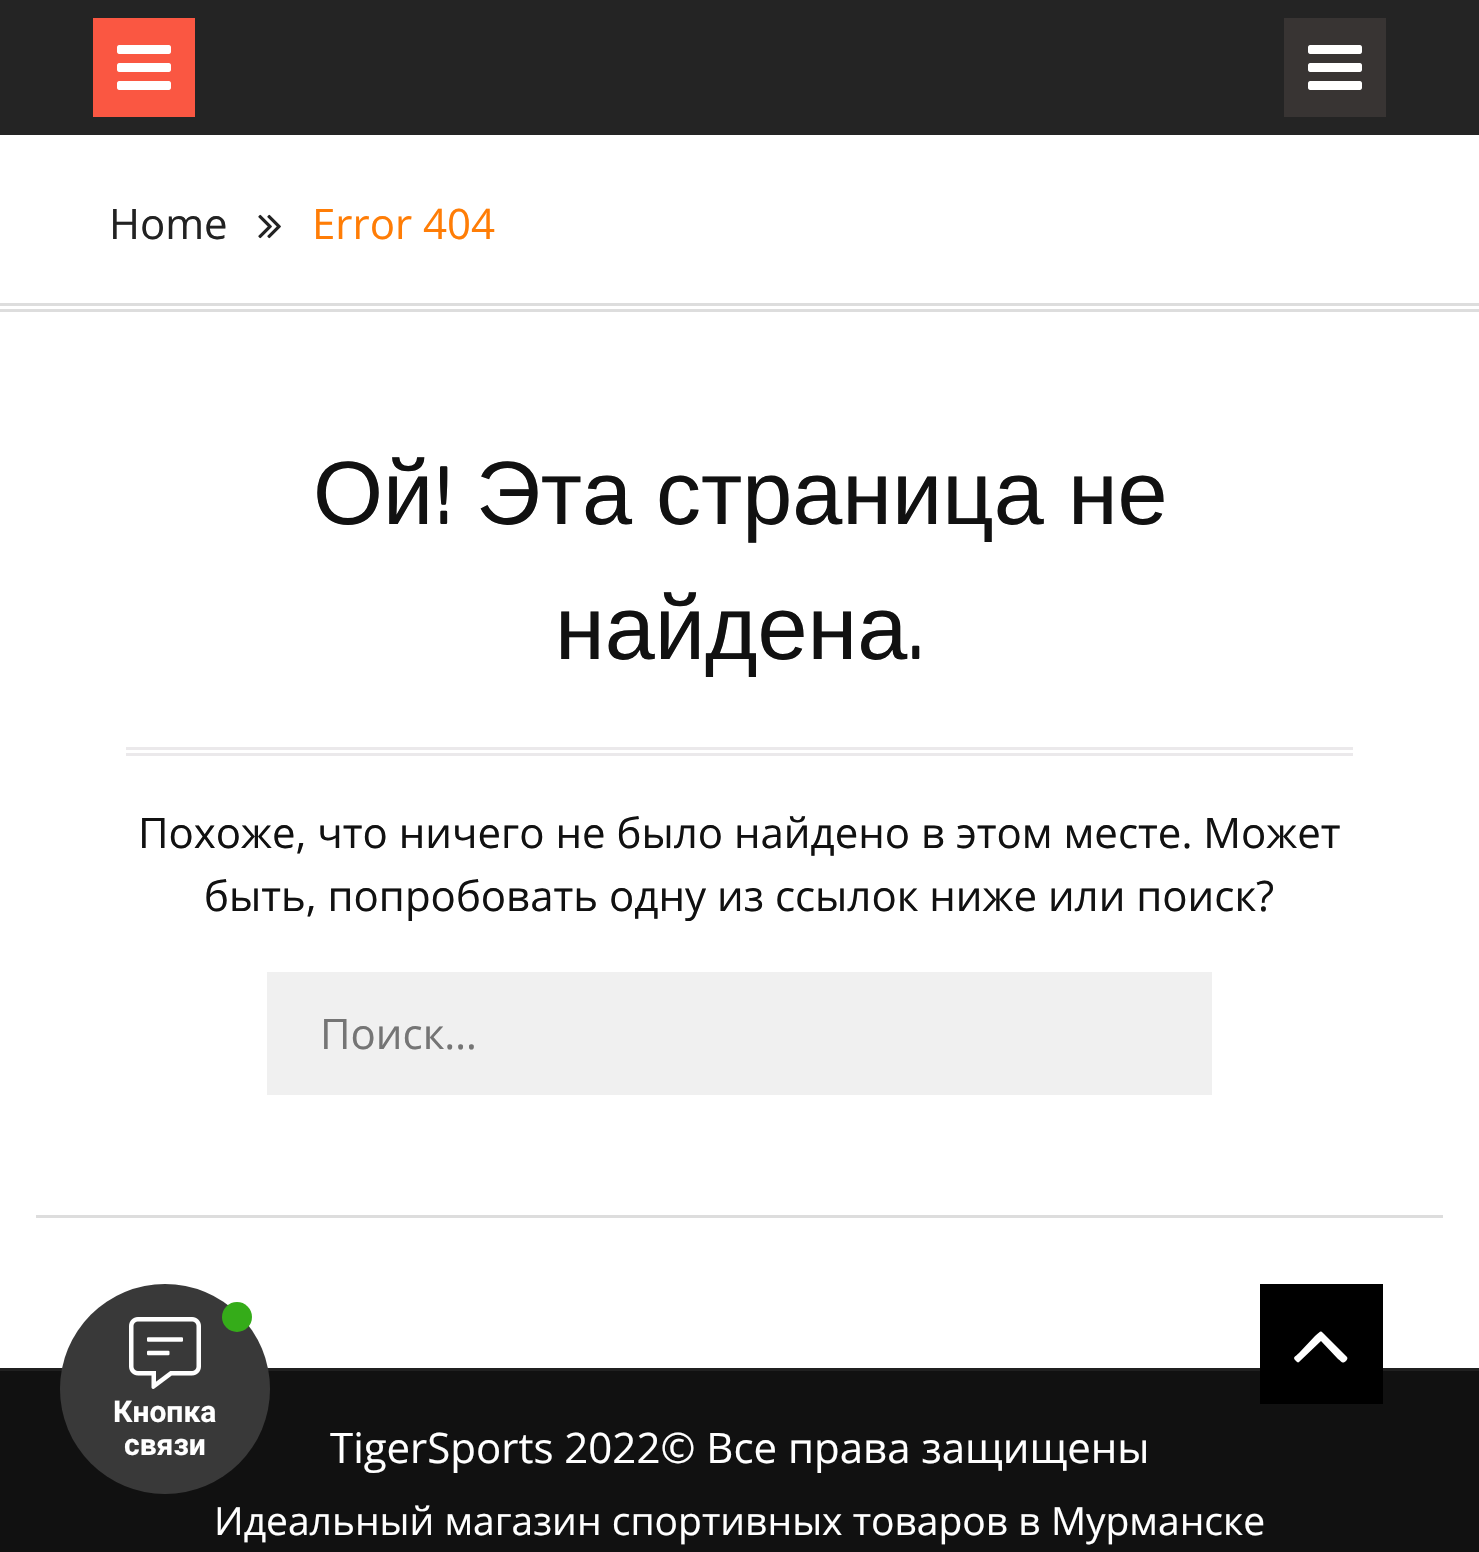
#include "include/core/SkBlurTypes.h"
#include "include/core/SkCanvas.h"
#include "include/core/SkData.h"
#include "include/core/SkFont.h"
#include "include/core/SkFontMgr.h"
#include "include/core/SkImage.h"
#include "include/core/SkMaskFilter.h"
#include "include/core/SkPaint.h"
#include "include/core/SkPathBuilder.h"
#include "include/core/SkTextBlob.h"
#include "include/effects/SkDashPathEffect.h"
#include "include/effects/SkGradientShader.h"
#include "include/utils/SkParsePath.h"

extern sk_sp<SkFontMgr> fontMgr;

static SkFont font(const char* family, int weight, float size, bool italic = false) {
    SkFontStyle style(weight, SkFontStyle::kNormal_Width,
        italic ? SkFontStyle::kItalic_Slant : SkFontStyle::kUpright_Slant);
    SkFont result(fontMgr->matchFamilyStyle(family, style), size);
    result.setSubpixel(true);
    return result;
}

static void drawLabel(SkCanvas* canvas, const char* s, float x, float y, const SkFont& font, SkColor color) {
    SkPaint ink(SkColor4f::FromColor(color));
    ink.setAntiAlias(true);
    canvas->drawString(s, x, y, font, ink);
}

static void drawTracked(SkCanvas* canvas, const char* s, float x, float y, const SkFont& font, const SkPaint& ink, float letter, float word) {
    std::vector<SkGlyphID> glyphs(font.countText(s, strlen(s), SkTextEncoding::kUTF8));
    std::vector<float> xs(glyphs.size());
    font.textToGlyphs(s, strlen(s), SkTextEncoding::kUTF8, glyphs);
    font.getXPos(glyphs, xs, x);
    float extra = 0;
    for (size_t i = 0; i < glyphs.size(); i++) {
        xs[i] += extra;
        extra += letter + word * (glyphs[i] == font.unicharToGlyph(' '));
    }
    canvas->drawTextBlob(SkTextBlob::MakeFromPosHGlyphs(glyphs, xs, y, font), 0, 0, ink);
}

static void fillRect(SkCanvas* canvas, float x, float y, float w, float h, SkColor color) {
    SkPaint ink(SkColor4f::FromColor(color));
    ink.setAntiAlias(true);
    canvas->drawRect(SkRect::MakeXYWH(x, y, w, h), ink);
}

static void drawPhoto(SkCanvas* canvas, const char* path, float x, float y, float w, float h) {
    auto image = SkImages::DeferredFromEncodedData(SkData::MakeFromFileName(path));
    canvas->drawImageRect(image, SkRect::MakeXYWH(x, y, w, h), SkSamplingOptions());
}

static SkPath parsePath(const char* data, bool evenOdd = false) {
    SkPath result = *SkParsePath::FromSVGString(data);
    if (evenOdd) result.setFillType(SkPathFillType::kEvenOdd);
    return result;
}

void draw(SkCanvas* canvas) {
    SkPaint paint;
    paint.setAntiAlias(true);
    canvas->clear(0xFFFFFFFF);
    fillRect(canvas, 0, 0, 1479, 135, 0xFF242424);
    fillRect(canvas, 93, 18, 102, 99, 0xFFFA5742);
    drawPhoto(canvas, "assets/img1.png", 117, 45, 54, 45);
    fillRect(canvas, 1284, 18, 102, 99, 0xFF383433);
    drawPhoto(canvas, "assets/img2.png", 1308, 45, 54, 45);
    fillRect(canvas, 0, 303, 1479, 3, 0xFFDDDDDD);
    fillRect(canvas, 0, 309, 1479, 3, 0xFFDDDDDD);
    SkFont font1 = font("Open Sans", 400, 42);
    drawLabel(canvas, "Home", 109, 239, font1, 0xFF222222);
    drawPhoto(canvas, "assets/img3.png", 258, 214, 23, 25);
    drawLabel(canvas, "Error 404", 312, 239, font1, 0xFFFF7D06);
    fillRect(canvas, 36, 1215, 1407, 3, 0xFFDDDDDD);
    fillRect(canvas, 126, 747, 1227, 3, 0xFFEBE9EB);
    fillRect(canvas, 126, 753, 1227, 3, 0xFFEBE9EB);
    SkFont font2 = font("Liberation Sans", 400, 90);
    drawLabel(canvas, "Ой", 313, 524, font2, 0xFF111111);
    SkFont font3 = font("Rajdhani", 500, 90);
    drawLabel(canvas, "!", 433, 524, font3, 0xFF111111);
    paint.setColor(0xFF111111);
    drawTracked(canvas, "Эта страница не", 476, 524, font2, paint, 0, -1);
    drawLabel(canvas, "найдена", 555, 659, font2, 0xFF111111);
    drawLabel(canvas, ".", 907, 659, font3, 0xFF111111);
    drawLabel(canvas, "Похоже, что ничего не было найдено в этом месте. Может", 138, 848, font1, 0xFF111111);
    drawLabel(canvas, "быть, попробовать одну из ссылок ниже или поиск?", 204, 911, font1, 0xFF111111);
    fillRect(canvas, 267, 972, 945, 123, 0xFFF0F0F0);
    drawLabel(canvas, "Поиск…", 320, 1049, font1, 0xFF757575);
    fillRect(canvas, 0, 1371, 1479, 181, 0xFF111111);
    fillRect(canvas, 0, 1368, 1479, 3, 0xFF202020);
    drawLabel(canvas, "TigerSports 2022© Все права защищены", 330, 1463, font1, 0xFFFFFFFF);
    SkFont font4 = font("Open Sans", 400, 39);
    drawLabel(canvas, "Идеальный магазин спортивных товаров в Мурманске", 214, 1535, font4, 0xFFFFFFFF);
    fillRect(canvas, 1260, 1284, 123, 120, 0xFF000000);
    paint.setColor(0xFFFFFFFF);
    canvas->drawPath(parsePath("M1347 1357C1348 1358 1347 1360 1346 1361C1342 1364 1342 1362 1338 1359L1321 1341L1299 1362C1298 1363 1297 1362 1296 1361C1292 1357 1295 1357 1299 1353L1315 1336C1322 1330 1320 1330 1326 1336Z"), paint);
    paint.setColor(0xFF393939);
    canvas->drawCircle(165, 1389, 105, paint);
    paint.setColor(0xFF35AC19);
    canvas->drawCircle(237, 1317, 15, paint);
    drawPhoto(canvas, "assets/img4.png", 129, 1317, 72, 72);
    SkFont font5 = font("Roboto", 700, 30);
    drawLabel(canvas, "Кнопка", 113, 1422, font5, 0xFFFFFFFF);
    drawLabel(canvas, "связи", 124, 1455, font5, 0xFFFFFFFF);
}
